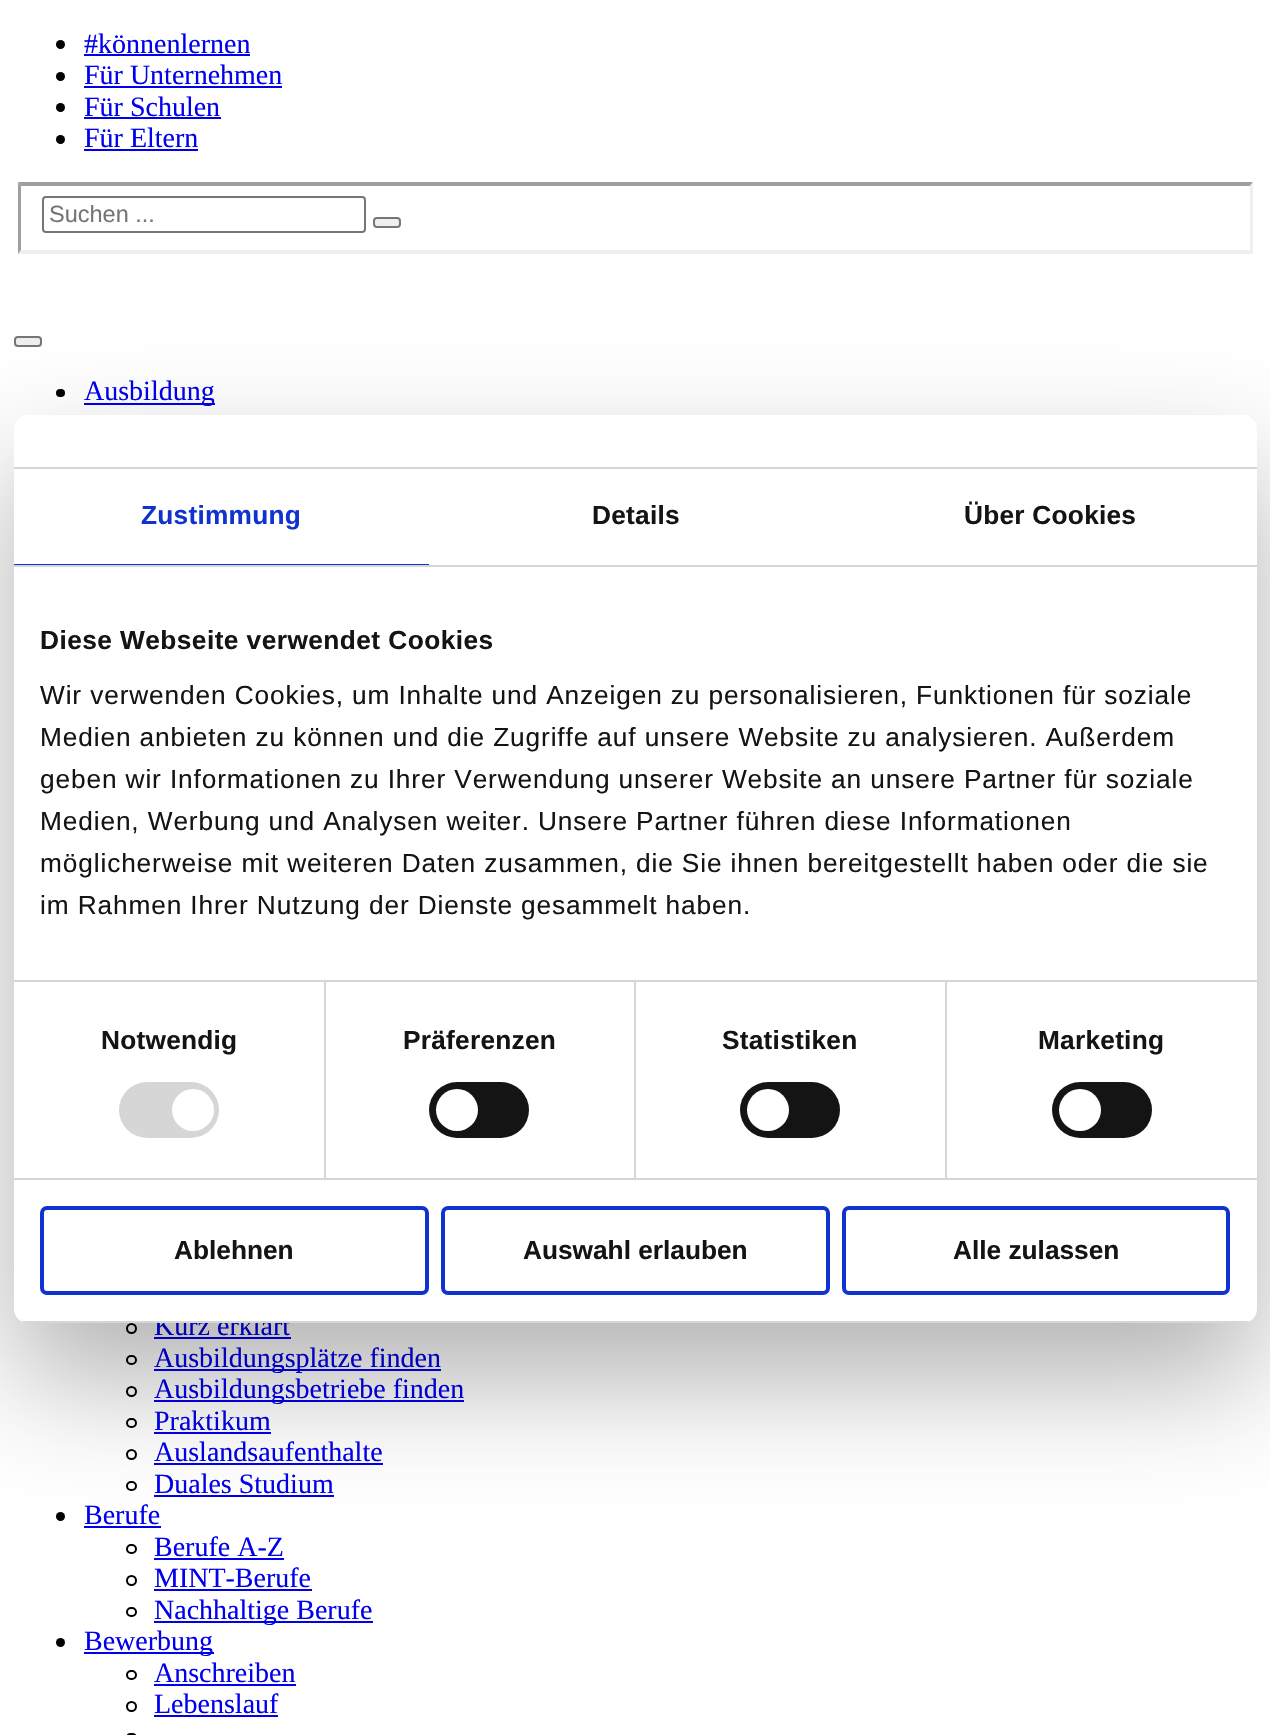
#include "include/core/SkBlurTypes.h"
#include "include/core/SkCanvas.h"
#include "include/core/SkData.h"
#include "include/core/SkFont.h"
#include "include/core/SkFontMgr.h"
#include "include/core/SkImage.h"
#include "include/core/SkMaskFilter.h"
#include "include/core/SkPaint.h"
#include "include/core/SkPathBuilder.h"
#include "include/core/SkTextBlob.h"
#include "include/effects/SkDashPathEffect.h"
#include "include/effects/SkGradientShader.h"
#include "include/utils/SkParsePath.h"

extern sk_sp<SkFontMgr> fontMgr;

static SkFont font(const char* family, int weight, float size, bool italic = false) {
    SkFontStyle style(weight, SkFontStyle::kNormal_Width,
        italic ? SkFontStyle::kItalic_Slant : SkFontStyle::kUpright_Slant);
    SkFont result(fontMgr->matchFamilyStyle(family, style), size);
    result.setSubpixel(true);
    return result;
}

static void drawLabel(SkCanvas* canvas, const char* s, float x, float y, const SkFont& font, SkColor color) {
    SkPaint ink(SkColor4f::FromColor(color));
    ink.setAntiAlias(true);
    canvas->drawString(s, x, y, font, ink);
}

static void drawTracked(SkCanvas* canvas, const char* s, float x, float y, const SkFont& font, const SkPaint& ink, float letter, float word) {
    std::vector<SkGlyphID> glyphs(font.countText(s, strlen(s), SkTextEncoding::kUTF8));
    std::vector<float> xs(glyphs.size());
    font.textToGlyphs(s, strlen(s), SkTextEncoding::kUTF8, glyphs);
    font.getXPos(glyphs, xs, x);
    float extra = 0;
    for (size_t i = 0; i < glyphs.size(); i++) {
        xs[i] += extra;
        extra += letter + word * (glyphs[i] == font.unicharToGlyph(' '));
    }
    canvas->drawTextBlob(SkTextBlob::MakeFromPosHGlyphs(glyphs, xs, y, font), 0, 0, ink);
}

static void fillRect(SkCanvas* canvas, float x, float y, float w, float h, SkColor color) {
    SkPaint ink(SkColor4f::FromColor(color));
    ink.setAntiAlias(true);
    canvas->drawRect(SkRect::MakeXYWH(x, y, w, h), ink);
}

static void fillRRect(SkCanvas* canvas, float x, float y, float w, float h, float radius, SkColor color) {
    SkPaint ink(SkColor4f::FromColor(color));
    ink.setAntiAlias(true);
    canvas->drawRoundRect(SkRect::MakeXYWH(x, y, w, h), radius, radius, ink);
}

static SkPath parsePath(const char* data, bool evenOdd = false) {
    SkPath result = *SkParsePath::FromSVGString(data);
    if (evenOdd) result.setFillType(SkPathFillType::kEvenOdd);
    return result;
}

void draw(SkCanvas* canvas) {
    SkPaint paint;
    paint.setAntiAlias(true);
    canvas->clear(0xFFFFFFFF);
    paint.setColor(0xFF000000);
    canvas->drawCircle(60.5f, 44.5f, 4.5f, paint);
    SkFont font1 = font("Liberation Serif", 400, 28);
    drawLabel(canvas, "#könnenlernen", 84, 53, font1, 0xFF0000EE);
    fillRect(canvas, 84, 54, 166, 2, 0xFF0000EE);
    canvas->drawCircle(60.5f, 76.5f, 4.5f, paint);
    drawLabel(canvas, "Für Unternehmen", 84, 84, font1, 0xFF0000EE);
    fillRect(canvas, 84, 86, 198, 2, 0xFF0000EE);
    canvas->drawCircle(60.5f, 107.5f, 4.5f, paint);
    drawLabel(canvas, "Für Schulen", 84, 116, font1, 0xFF0000EE);
    fillRect(canvas, 84, 117, 137, 2, 0xFF0000EE);
    canvas->drawCircle(60.5f, 139.5f, 4.5f, paint);
    drawLabel(canvas, "Für Eltern", 84, 147, font1, 0xFF0000EE);
    fillRect(canvas, 84, 149, 114, 2, 0xFF0000EE);
    paint.setColor(0xFF9F9F9F);
    canvas->drawPath(parsePath("M18 182H1253L1250 186H21Z"), paint);
    paint.setColor(0xFFEFEFEF);
    canvas->drawPath(parsePath("M1253 182V254L1250 250V186Z"), paint);
    canvas->drawPath(parsePath("M1253 254H18L21 250H1250Z"), paint);
    paint.setColor(0xFF9F9F9F);
    canvas->drawPath(parsePath("M18 254V182L21 186V250Z"), paint);
    paint.setStroke(true);
    paint.setStrokeWidth(2);
    paint.setColor(0xFF767676);
    canvas->drawRoundRect(SkRect::MakeXYWH(43, 197, 322, 35), 3, 3, paint);
    SkFont font2 = font("Liberation Sans", 400, 23.5f);
    drawLabel(canvas, "Suchen ...", 49, 222, font2, 0xFF757575);
    paint.setStroke(false);
    paint.setColor(0xFFEFEFEF);
    canvas->drawRoundRect(SkRect::MakeXYWH(374, 218, 26, 9), 3, 3, paint);
    paint.setStroke(true);
    paint.setColor(0xFF767676);
    canvas->drawRoundRect(SkRect::MakeXYWH(374, 218, 26, 9), 3, 3, paint);
    paint.setStroke(false);
    paint.setColor(0xFFEFEFEF);
    canvas->drawRoundRect(SkRect::MakeXYWH(15, 337, 26, 9), 3, 3, paint);
    paint.setStroke(true);
    paint.setColor(0xFF767676);
    canvas->drawRoundRect(SkRect::MakeXYWH(15, 337, 26, 9), 3, 3, paint);
    fillRRect(canvas, 56, 389, 9, 8, 4, 0xFF000000);
    fillRect(canvas, 84, 403, 131, 2, 0xFF0000EE);
    drawLabel(canvas, "Ausbildung", 84, 400, font1, 0xFF0000EE);
    paint.setColor(0xFF000000);
    canvas->drawCircle(131.5f, 1328.5f, 4.5f, paint);
    drawLabel(canvas, "Kurz erklärt", 154, 1335, font1, 0xFF0000EE);
    fillRect(canvas, 154, 1337, 137, 2, 0xFF0000EE);
    canvas->drawRoundRect(SkRect::MakeXYWH(127, 1356, 9, 8), 4, 4, paint);
    fillRect(canvas, 154, 1369, 287, 2, 0xFF0000EE);
    drawLabel(canvas, "Ausbildungsplätze finden", 154, 1367, font1, 0xFF0000EE);
    canvas->drawCircle(131.5f, 1391.5f, 4.5f, paint);
    fillRect(canvas, 154, 1400, 310, 2, 0xFF0000EE);
    drawLabel(canvas, "Ausbildungsbetriebe finden", 154, 1398, font1, 0xFF0000EE);
    canvas->drawRoundRect(SkRect::MakeXYWH(127, 1419, 9, 8), 4, 4, paint);
    drawLabel(canvas, "Praktikum", 154, 1430, font1, 0xFF0000EE);
    fillRect(canvas, 154, 1432, 117, 2, 0xFF0000EE);
    canvas->drawCircle(131.5f, 1454.5f, 4.5f, paint);
    drawLabel(canvas, "Auslandsaufenthalte", 154, 1461, font1, 0xFF0000EE);
    fillRect(canvas, 154, 1463, 229, 2, 0xFF0000EE);
    canvas->drawRoundRect(SkRect::MakeXYWH(127, 1482, 9, 8), 4, 4, paint);
    drawLabel(canvas, "Duales Studium", 154, 1493, font1, 0xFF0000EE);
    fillRect(canvas, 154, 1495, 180, 2, 0xFF0000EE);
    paint.setStroke(false);
    canvas->drawCircle(60.5f, 1516.5f, 4.5f, paint);
    drawLabel(canvas, "Berufe", 84, 1524, font1, 0xFF0000EE);
    fillRect(canvas, 84, 1526, 77, 2, 0xFF0000EE);
    paint.setStroke(true);
    canvas->drawRoundRect(SkRect::MakeXYWH(127, 1545, 9, 8), 4, 4, paint);
    drawLabel(canvas, "Berufe A-Z", 154, 1556, font1, 0xFF0000EE);
    fillRect(canvas, 154, 1558, 130, 2, 0xFF0000EE);
    canvas->drawCircle(131.5f, 1580.5f, 4.5f, paint);
    drawLabel(canvas, "MINT-Berufe", 154, 1587, font1, 0xFF0000EE);
    fillRect(canvas, 154, 1589, 158, 2, 0xFF0000EE);
    canvas->drawRoundRect(SkRect::MakeXYWH(127, 1608, 9, 8), 4, 4, paint);
    fillRect(canvas, 154, 1621, 219, 2, 0xFF0000EE);
    drawLabel(canvas, "Nachhaltige Berufe", 154, 1619, font1, 0xFF0000EE);
    paint.setStroke(false);
    canvas->drawCircle(60.5f, 1642.5f, 4.5f, paint);
    fillRect(canvas, 84, 1652, 130, 2, 0xFF0000EE);
    drawLabel(canvas, "Bewerbung", 84, 1650, font1, 0xFF0000EE);
    paint.setStroke(true);
    canvas->drawRoundRect(SkRect::MakeXYWH(127, 1671, 9, 8), 4, 4, paint);
    drawLabel(canvas, "Anschreiben", 154, 1682, font1, 0xFF0000EE);
    fillRect(canvas, 154, 1684, 142, 2, 0xFF0000EE);
    canvas->drawCircle(131.5f, 1706.5f, 4.5f, paint);
    drawLabel(canvas, "Lebenslauf", 154, 1713, font1, 0xFF0000EE);
    fillRect(canvas, 154, 1715, 124, 2, 0xFF0000EE);
    canvas->drawRoundRect(SkRect::MakeXYWH(127, 1734, 9, 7), 4, 4, paint);
    paint.setStroke(false);
    paint.setColor(0x4D000000);
    paint.setMaskFilter(SkMaskFilter::MakeBlur(kNormal_SkBlurStyle, 59.5f));
    canvas->drawRoundRect(SkRect::MakeXYWH(14, 471, 1243, 908), 14, 14, paint);
    paint.setMaskFilter(nullptr);
    fillRRect(canvas, 14, 415, 1243, 908, 14, 0xFFFFFFFF);
    fillRect(canvas, 14, 467, 1243, 2, 0xFFD6D6D6);
    fillRect(canvas, 14, 565, 1243, 2, 0xFFD6D6D6);
    fillRect(canvas, 14, 564, 415, 1, 0xFF1032CF);
    SkFont font3 = font("Liberation Sans", 700, 26.25f);
    paint.setColor(0xFF1032CF);
    drawTracked(canvas, "Zustimmung", 141, 524, font3, paint, 0.25f, 0);
    paint.setColor(0xFF141414);
    drawTracked(canvas, "Details", 592, 524, font3, paint, 0.25f, 0);
    drawTracked(canvas, "Über Cookies", 964, 524, font3, paint, 0.25f, 0);
    fillRect(canvas, 14, 980, 1243, 2, 0xFFD6D6D6);
    drawTracked(canvas, "Diese Webseite verwendet Cookies", 40, 649, font3, paint, 0.45f, 0);
    SkFont font4 = font("Liberation Sans", 400, 26.25f);
    drawTracked(canvas, "Wir verwenden Cookies, um Inhalte und Anzeigen zu personalisieren, Funktionen für soziale", 40, 704, font4, paint, 0.88f, 0);
    drawTracked(canvas, "Medien anbieten zu können und die Zugriffe auf unsere Website zu analysieren. Außerdem", 40, 746, font4, paint, 0.88f, 0);
    drawTracked(canvas, "geben wir Informationen zu Ihrer Verwendung unserer Website an unsere Partner für soziale", 40, 788, font4, paint, 0.88f, 0);
    drawTracked(canvas, "Medien, Werbung und Analysen weiter. Unsere Partner führen diese Informationen", 40, 830, font4, paint, 0.88f, 0);
    drawTracked(canvas, "möglicherweise mit weiteren Daten zusammen, die Sie ihnen bereitgestellt haben oder die sie", 40, 872, font4, paint, 0.88f, 0);
    drawTracked(canvas, "im Rahmen Ihrer Nutzung der Dienste gesammelt haben.", 40, 914, font4, paint, 0.88f, 0);
    fillRect(canvas, 14, 1178, 1243, 2, 0xFFD6D6D6);
    fillRect(canvas, 324, 982, 2, 196, 0xFFD6D6D6);
    drawTracked(canvas, "Notwendig", 101, 1049, font3, paint, 0.25f, 0);
    fillRRect(canvas, 119, 1082, 100, 56, 28, 0xFFD6D6D6);
    paint.setColor(0xFFFFFFFF);
    canvas->drawCircle(193, 1110, 21, paint);
    fillRect(canvas, 634, 982, 2, 196, 0xFFD6D6D6);
    paint.setColor(0xFF141414);
    drawTracked(canvas, "Präferenzen", 403, 1049, font3, paint, 0.25f, 0);
    fillRRect(canvas, 429, 1082, 100, 56, 28, 0xFF141414);
    paint.setColor(0xFFFFFFFF);
    canvas->drawCircle(457, 1110, 21, paint);
    fillRect(canvas, 945, 982, 2, 196, 0xFFD6D6D6);
    paint.setColor(0xFF141414);
    drawTracked(canvas, "Statistiken", 722, 1049, font3, paint, 0.25f, 0);
    fillRRect(canvas, 740, 1082, 100, 56, 28, 0xFF141414);
    paint.setColor(0xFFFFFFFF);
    canvas->drawCircle(768, 1110, 21, paint);
    paint.setColor(0xFF141414);
    drawTracked(canvas, "Marketing", 1038, 1049, font3, paint, 0.25f, 0);
    fillRRect(canvas, 1052, 1082, 100, 56, 28, 0xFF141414);
    paint.setColor(0xFFFFFFFF);
    canvas->drawCircle(1080, 1110, 21, paint);
    canvas->save();
    canvas->clipPath(parsePath("M28 415H1243C1250.5 415 1257 421.5 1257 429V1309C1257 1316.5 1250.5 1323 1243 1323H28C20.5 1323 14 1316.5 14 1309V429C14 421.5 20.5 415 28 415Z"), true);
    fillRect(canvas, 14, 1321, 1243, 2, 0xFFD6D6D6);
    canvas->restore();
    paint.setStroke(true);
    paint.setStrokeWidth(4);
    paint.setColor(0xFF1032CF);
    canvas->drawRoundRect(SkRect::MakeXYWH(42, 1208, 385, 85), 5, 5, paint);
    drawLabel(canvas, "Ablehnen", 174, 1259, font3, 0xFF141414);
    canvas->drawRoundRect(SkRect::MakeXYWH(443, 1208, 385, 85), 5, 5, paint);
    drawLabel(canvas, "Auswahl erlauben", 523, 1259, font3, 0xFF141414);
    canvas->drawRoundRect(SkRect::MakeXYWH(844, 1208, 384, 85), 5, 5, paint);
    drawLabel(canvas, "Alle zulassen", 953, 1259, font3, 0xFF141414);
}
